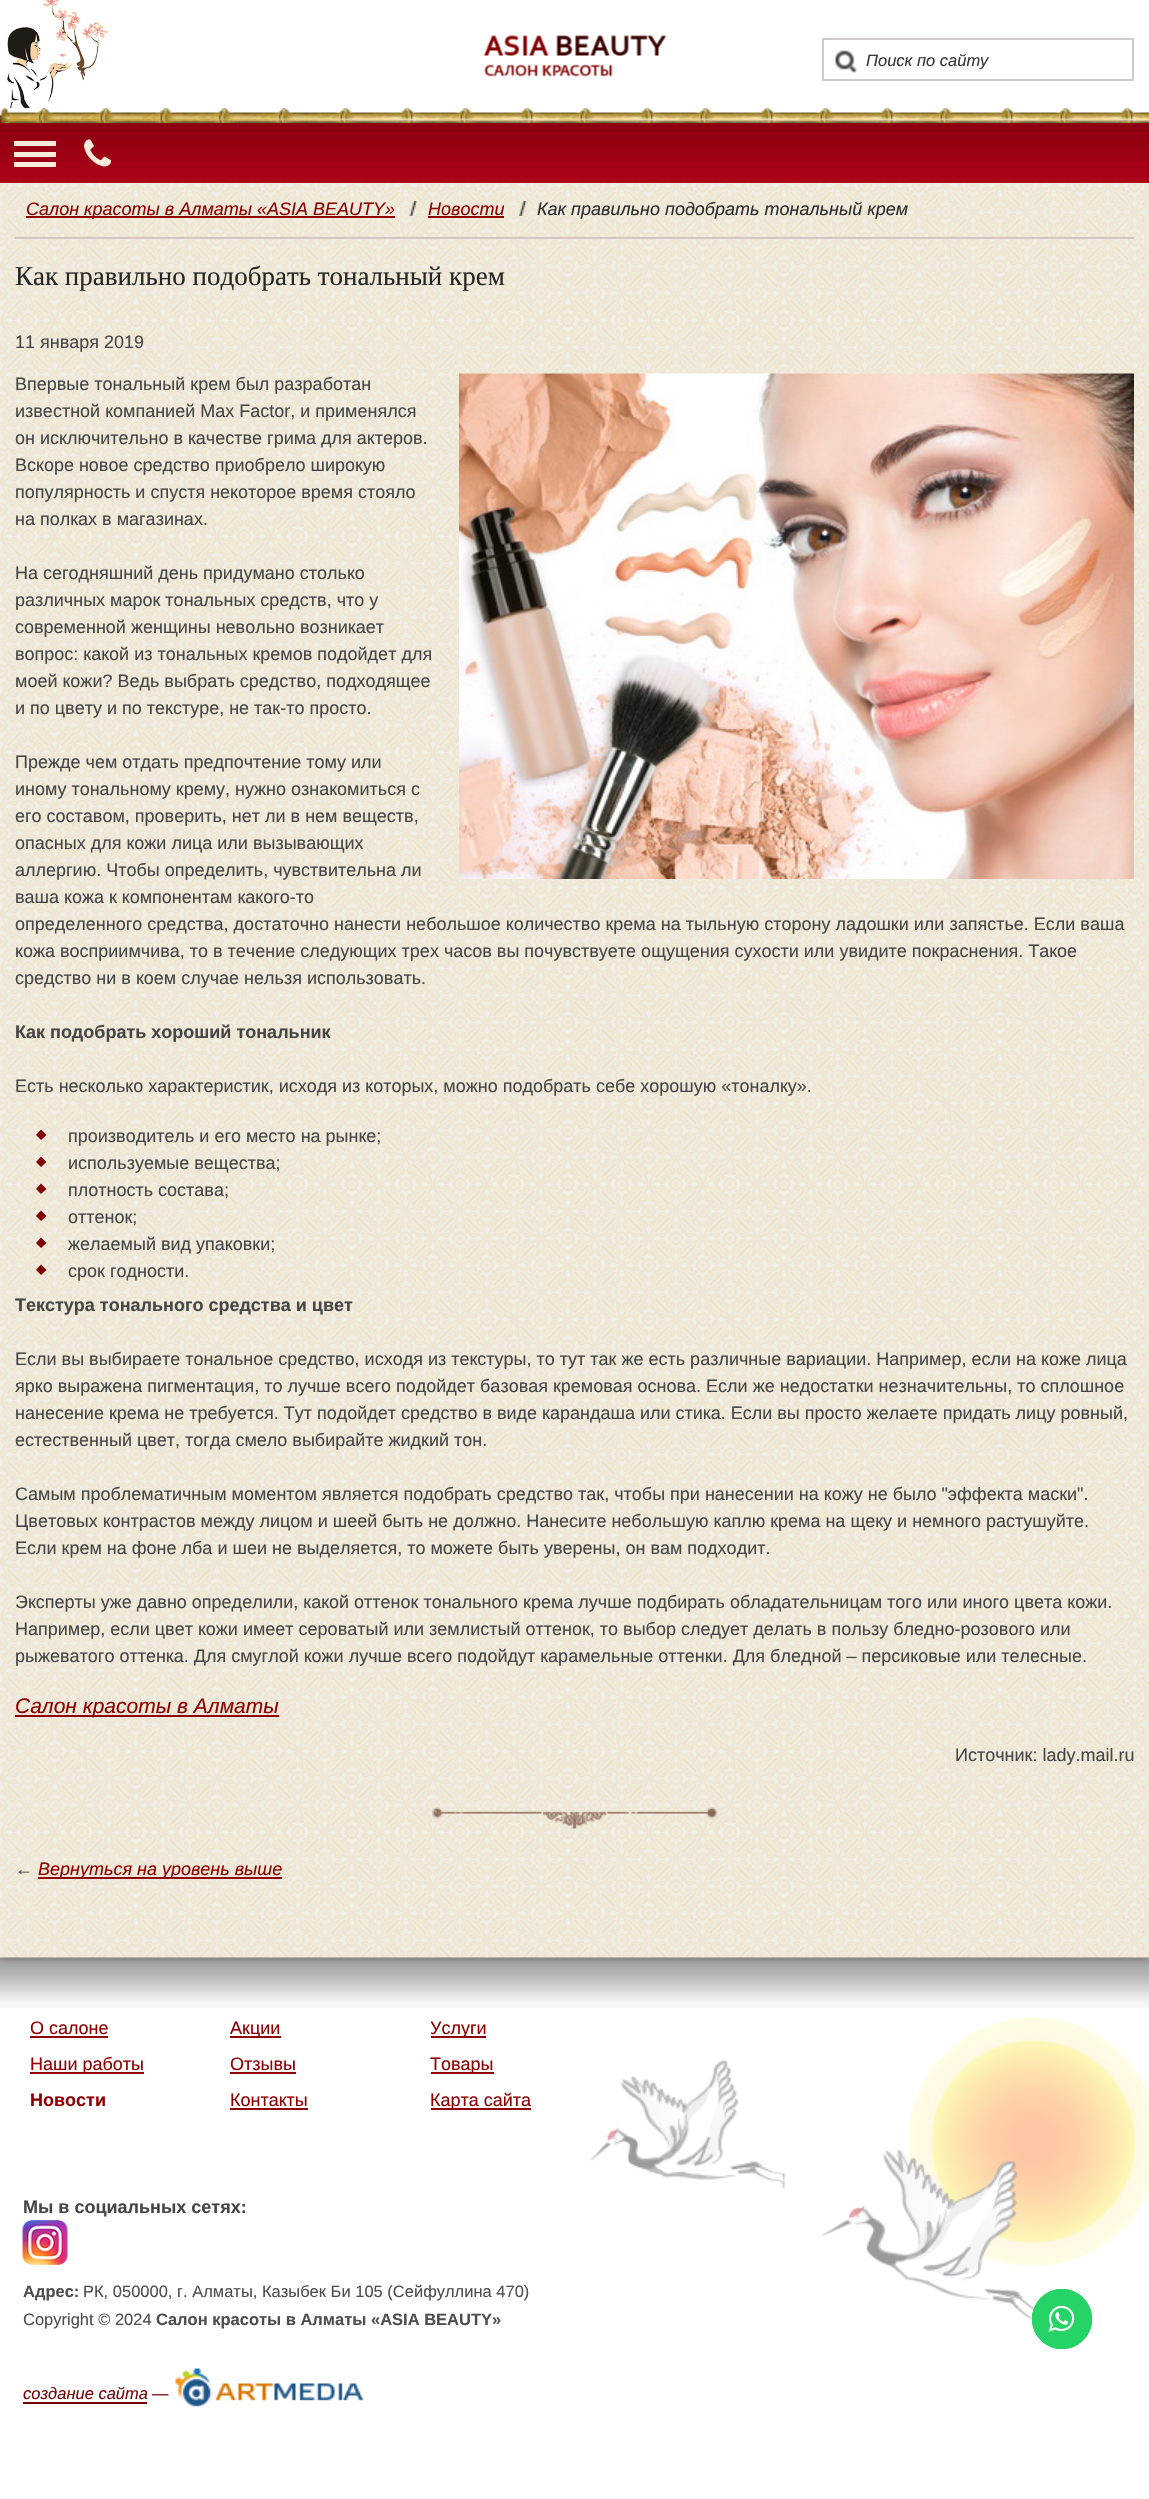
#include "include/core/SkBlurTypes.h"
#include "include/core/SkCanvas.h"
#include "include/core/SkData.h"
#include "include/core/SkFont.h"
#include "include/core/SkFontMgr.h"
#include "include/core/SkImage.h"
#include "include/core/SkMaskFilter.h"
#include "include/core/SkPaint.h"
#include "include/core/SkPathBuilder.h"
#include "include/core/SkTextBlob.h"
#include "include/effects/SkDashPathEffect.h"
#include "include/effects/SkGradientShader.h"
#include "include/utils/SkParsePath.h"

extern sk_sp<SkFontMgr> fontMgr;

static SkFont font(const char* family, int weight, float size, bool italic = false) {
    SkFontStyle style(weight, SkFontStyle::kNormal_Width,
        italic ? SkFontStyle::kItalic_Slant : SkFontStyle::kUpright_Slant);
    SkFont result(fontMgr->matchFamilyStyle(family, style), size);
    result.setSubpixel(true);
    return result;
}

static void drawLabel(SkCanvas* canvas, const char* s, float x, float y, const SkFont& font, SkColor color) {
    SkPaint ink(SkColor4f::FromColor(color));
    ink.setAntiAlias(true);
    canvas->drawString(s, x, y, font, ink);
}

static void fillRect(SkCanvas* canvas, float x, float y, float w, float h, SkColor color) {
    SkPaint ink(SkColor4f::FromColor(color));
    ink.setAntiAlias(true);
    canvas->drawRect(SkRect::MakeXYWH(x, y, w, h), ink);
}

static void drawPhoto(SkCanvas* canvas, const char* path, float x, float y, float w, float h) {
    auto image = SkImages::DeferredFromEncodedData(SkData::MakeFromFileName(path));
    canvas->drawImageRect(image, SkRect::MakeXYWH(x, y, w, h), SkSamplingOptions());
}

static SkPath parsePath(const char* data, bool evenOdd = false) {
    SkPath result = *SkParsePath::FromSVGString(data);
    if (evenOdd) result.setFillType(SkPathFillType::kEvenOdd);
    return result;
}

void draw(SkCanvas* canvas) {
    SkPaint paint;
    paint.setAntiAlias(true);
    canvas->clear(0xFFFFFFFF);
    drawPhoto(canvas, "assets/img1.png", 7, 0, 101, 108);
    drawPhoto(canvas, "assets/img2.png", 483, 35, 184, 42);
    paint.setStroke(true);
    paint.setStrokeWidth(2);
    paint.setColor(0xFFCFCBC6);
    canvas->drawRect(SkRect::MakeXYWH(823, 39, 310, 41), paint);
    drawPhoto(canvas, "assets/img3.png", 835, 50, 22, 23);
    canvas->save();
    canvas->clipRect(SkRect::MakeXYWH(866, 51, 255, 18));
    SkFont font1 = font("Liberation Sans", 400, 16.5f, true);
    drawLabel(canvas, "Поиск по сайту", 866, 66, font1, 0xFF363636);
    canvas->restore();
    paint.setStroke(false);
    paint.setColor(0xFF9D928A);
    paint.setMaskFilter(SkMaskFilter::MakeBlur(kNormal_SkBlurStyle, 4));
    canvas->drawRect(SkRect::MakeXYWH(0, 183, 1149, 1775), paint);
    paint.setMaskFilter(nullptr);
    drawPhoto(canvas, "assets/img4.png", 0, 115, 1149, 68);
    drawPhoto(canvas, "assets/img5.png", 0, 108, 1149, 15);
    fillRect(canvas, 14, 141, 42, 5, 0xFFFBEBD8);
    fillRect(canvas, 14, 152, 42, 5, 0xFFFBEBD8);
    fillRect(canvas, 14, 162, 42, 5, 0xFFFBEBD8);
    drawPhoto(canvas, "assets/img6.png", 84, 139, 28, 28);
    drawPhoto(canvas, "assets/img7.png", 0, 183, 1149, 1775);
    fillRect(canvas, 15, 237, 1119, 2, 0xFFD5C5C1);
    fillRect(canvas, 26, 216, 369, 2, 0xFF910000);
    SkFont font2 = font("Liberation Sans", 400, 18, true);
    drawLabel(canvas, "Cалон красоты в Алматы «ASIA BEAUTY»", 26, 215, font2, 0xFF910000);
    drawPhoto(canvas, "assets/img8.png", 409, 201, 8, 15);
    drawLabel(canvas, "Новости", 428, 215, font2, 0xFF910000);
    fillRect(canvas, 428, 216, 76, 2, 0xFF910000);
    drawPhoto(canvas, "assets/img9.png", 519, 201, 8, 15);
    drawLabel(canvas, "Как правильно подобрать тональный крем", 537, 215, font2, 0xFF2E2D2D);
    SkFont font3 = font("Liberation Serif", 400, 27);
    drawLabel(canvas, "Как правильно подобрать тональный крем", 15, 285, font3, 0xFF272727);
    drawPhoto(canvas, "assets/img10.png", 432, 1807, 286, 22);
    SkFont font4 = font("Liberation Sans", 400, 18);
    drawLabel(canvas, "11 января 2019", 15, 348, font4, 0xFF464646);
    drawLabel(canvas, "Впервые тональный крем был разработан", 15, 390, font4, 0xFF464646);
    drawPhoto(canvas, "assets/img11.png", 459, 373, 675, 506);
    drawLabel(canvas, "известной компанией Max Factor, и применялся", 15, 417, font4, 0xFF464646);
    drawLabel(canvas, "он исключительно в качестве грима для актеров.", 15, 444, font4, 0xFF464646);
    drawLabel(canvas, "Вскоре новое средство приобрело широкую", 15, 471, font4, 0xFF464646);
    drawLabel(canvas, "популярность и спустя некоторое время стояло", 15, 498, font4, 0xFF464646);
    drawLabel(canvas, "на полках в магазинах.", 15, 525, font4, 0xFF464646);
    drawLabel(canvas, "На сегодняшний день придумано столько", 15, 579, font4, 0xFF464646);
    drawLabel(canvas, "различных марок тональных средств, что у", 15, 606, font4, 0xFF464646);
    drawLabel(canvas, "современной женщины невольно возникает", 15, 633, font4, 0xFF464646);
    drawLabel(canvas, "вопрос: какой из тональных кремов подойдет для", 15, 660, font4, 0xFF464646);
    drawLabel(canvas, "моей кожи? Ведь выбрать средство, подходящее", 15, 687, font4, 0xFF464646);
    drawLabel(canvas, "и по цвету и по текстуре, не так-то просто.", 15, 714, font4, 0xFF464646);
    drawLabel(canvas, "Прежде чем отдать предпочтение тому или", 15, 768, font4, 0xFF464646);
    drawLabel(canvas, "иному тональному крему, нужно ознакомиться с", 15, 795, font4, 0xFF464646);
    drawLabel(canvas, "его составом, проверить, нет ли в нем веществ,", 15, 822, font4, 0xFF464646);
    drawLabel(canvas, "опасных для кожи лица или вызывающих", 15, 849, font4, 0xFF464646);
    drawLabel(canvas, "аллергию. Чтобы определить, чувствительна ли", 15, 876, font4, 0xFF464646);
    drawLabel(canvas, "ваша кожа к компонентам какого-то", 15, 903, font4, 0xFF464646);
    drawLabel(canvas, "определенного средства, достаточно нанести небольшое количество крема на тыльную сторону ладошки или запястье. Если ваша", 15, 930, font4, 0xFF464646);
    drawLabel(canvas, "кожа восприимчива, то в течение следующих трех часов вы почувствуете ощущения сухости или увидите покраснения. Такое", 15, 957, font4, 0xFF464646);
    drawLabel(canvas, "средство ни в коем случае нельзя использовать.", 15, 984, font4, 0xFF464646);
    SkFont font5 = font("Liberation Sans", 700, 18);
    drawLabel(canvas, "Как подобрать хороший тональник", 15, 1038, font5, 0xFF464646);
    drawLabel(canvas, "Есть несколько характеристик, исходя из которых, можно подобрать себе хорошую «тоналку».", 15, 1092, font4, 0xFF464646);
    paint.setColor(0xFF800000);
    canvas->drawPath(parsePath("M41 1129.5L46.5 1135L41 1140L36 1135Z"), paint);
    drawLabel(canvas, "производитель и его место на рынке;", 68, 1142, font4, 0xFF464646);
    canvas->drawPath(parsePath("M41 1156.5L46.5 1162L41 1167L36 1162Z"), paint);
    drawLabel(canvas, "используемые вещества;", 68, 1169, font4, 0xFF464646);
    canvas->drawPath(parsePath("M41 1183.5L46.5 1189L41 1194L36 1189Z"), paint);
    drawLabel(canvas, "плотность состава;", 68, 1196, font4, 0xFF464646);
    canvas->drawPath(parsePath("M41 1210.5L46.5 1216L41 1221L36 1216Z"), paint);
    drawLabel(canvas, "оттенок;", 68, 1223, font4, 0xFF464646);
    canvas->drawPath(parsePath("M41 1237.5L46.5 1243L41 1248L36 1243Z"), paint);
    drawLabel(canvas, "желаемый вид упаковки;", 68, 1250, font4, 0xFF464646);
    canvas->drawPath(parsePath("M41 1264.5L46.5 1270L41 1275L36 1270Z"), paint);
    drawLabel(canvas, "срок годности.", 68, 1277, font4, 0xFF464646);
    drawLabel(canvas, "Текстура тонального средства и цвет", 15, 1311, font5, 0xFF464646);
    drawLabel(canvas, "Если вы выбираете тональное средство, исходя из текстуры, то тут так же есть различные вариации. Например, если на коже лица", 15, 1365, font4, 0xFF464646);
    drawLabel(canvas, "ярко выражена пигментация, то лучше всего подойдет базовая кремовая основа. Если же недостатки незначительны, то сплошное", 15, 1392, font4, 0xFF464646);
    drawLabel(canvas, "нанесение крема не требуется. Тут подойдет средство в виде карандаша или стика. Если вы просто желаете придать лицу ровный,", 15, 1419, font4, 0xFF464646);
    drawLabel(canvas, "естественный цвет, тогда смело выбирайте жидкий тон.", 15, 1446, font4, 0xFF464646);
    drawLabel(canvas, "Самым проблематичным моментом является подобрать средство так, чтобы при нанесении на кожу не было \"эффекта маски\".", 15, 1500, font4, 0xFF464646);
    drawLabel(canvas, "Цветовых контрастов между лицом и шеей быть не должно. Нанесите небольшую каплю крема на щеку и немного растушуйте.", 15, 1527, font4, 0xFF464646);
    drawLabel(canvas, "Если крем на фоне лба и шеи не выделяется, то можете быть уверены, он вам подходит.", 15, 1554, font4, 0xFF464646);
    drawLabel(canvas, "Эксперты уже давно определили, какой оттенок тонального крема лучше подбирать обладательницам того или иного цвета кожи.", 15, 1608, font4, 0xFF464646);
    drawLabel(canvas, "Например, если цвет кожи имеет сероватый или землистый оттенок, то выбор следует делать в пользу бледно-розового или", 15, 1635, font4, 0xFF464646);
    drawLabel(canvas, "рыжеватого оттенка. Для смуглой кожи лучше всего подойдут карамельные оттенки. Для бледной – персиковые или телесные.", 15, 1662, font4, 0xFF464646);
    fillRect(canvas, 15, 1715, 264, 2, 0xFF910000);
    SkFont font6 = font("Liberation Sans", 400, 21, true);
    drawLabel(canvas, "Салон красоты в Алматы", 15, 1713, font6, 0xFF910000);
    drawLabel(canvas, "Источник: lady.mail.ru", 955, 1761, font4, 0xFF464646);
    drawLabel(canvas, "←", 15, 1875, font4, 0xFF464646);
    fillRect(canvas, 38, 1877, 244, 2, 0xFF910000);
    drawLabel(canvas, "Вернуться на уровень выше", 38, 1875, font2, 0xFF910000);
    drawPhoto(canvas, "assets/img12.png", 0, 1957, 1149, 51);
    drawPhoto(canvas, "assets/img13.png", 590, 2017, 559, 303);
    drawLabel(canvas, "О салоне", 30, 2034, font4, 0xFF910000);
    fillRect(canvas, 30, 2036, 78, 2, 0xFF910000);
    fillRect(canvas, 230, 2036, 51, 2, 0xFF910000);
    drawLabel(canvas, "Акции", 230, 2034, font4, 0xFF910000);
    fillRect(canvas, 431, 2036, 55, 2, 0xFF910000);
    drawLabel(canvas, "Услуги", 430, 2034, font4, 0xFF910000);
    fillRect(canvas, 30, 2072, 114, 2, 0xFF910000);
    drawLabel(canvas, "Наши работы", 30, 2070, font4, 0xFF910000);
    drawLabel(canvas, "Отзывы", 230, 2070, font4, 0xFF910000);
    fillRect(canvas, 230, 2072, 66, 2, 0xFF910000);
    fillRect(canvas, 431, 2072, 63, 2, 0xFF910000);
    drawLabel(canvas, "Товары", 430, 2070, font4, 0xFF910000);
    drawLabel(canvas, "Новости", 30, 2106, font5, 0xFF910000);
    drawLabel(canvas, "Контакты", 230, 2106, font4, 0xFF910000);
    fillRect(canvas, 230, 2108, 78, 2, 0xFF910000);
    fillRect(canvas, 431, 2108, 100, 2, 0xFF910000);
    drawLabel(canvas, "Карта сайта", 430, 2106, font4, 0xFF910000);
    drawLabel(canvas, "Мы в социальных сетях:", 23, 2213, font5, 0xFF464646);
    drawPhoto(canvas, "assets/img14.png", 22, 2220, 46, 45);
    SkFont font7 = font("Liberation Sans", 700, 16.5f);
    drawLabel(canvas, "Адрес:", 23, 2297, font7, 0xFF4E4E4E);
    SkFont font8 = font("Liberation Sans", 400, 16.5f);
    drawLabel(canvas, "РК, 050000, г. Алматы, Казыбек Би 105 (Сейфуллина 470)", 83, 2297, font8, 0xFF4E4E4E);
    drawLabel(canvas, "Copyright © 2024", 23, 2325, font8, 0xFF4E4E4E);
    drawLabel(canvas, "Cалон красоты в Алматы «ASIA BEAUTY»", 156, 2325, font7, 0xFF4E4E4E);
    drawLabel(canvas, "создание сайта", 23, 2399, font1, 0xFF750505);
    fillRect(canvas, 23, 2402, 124, 2, 0xFF750505);
    drawLabel(canvas, "—", 152, 2399, font8, 0xFF750505);
    drawPhoto(canvas, "assets/img15.png", 175, 2368, 189, 39);
    paint.setColor(0xFF25D366);
    canvas->drawCircle(1062, 2319, 30, paint);
    drawPhoto(canvas, "assets/img16.png", 1048, 2305, 27, 27);
    paint.setStroke(true);
    paint.setStrokeWidth(8);
    canvas->drawCircle(1062, 2319, 26, paint);
    canvas->drawCircle(1062, 2319, 26, paint);
}
